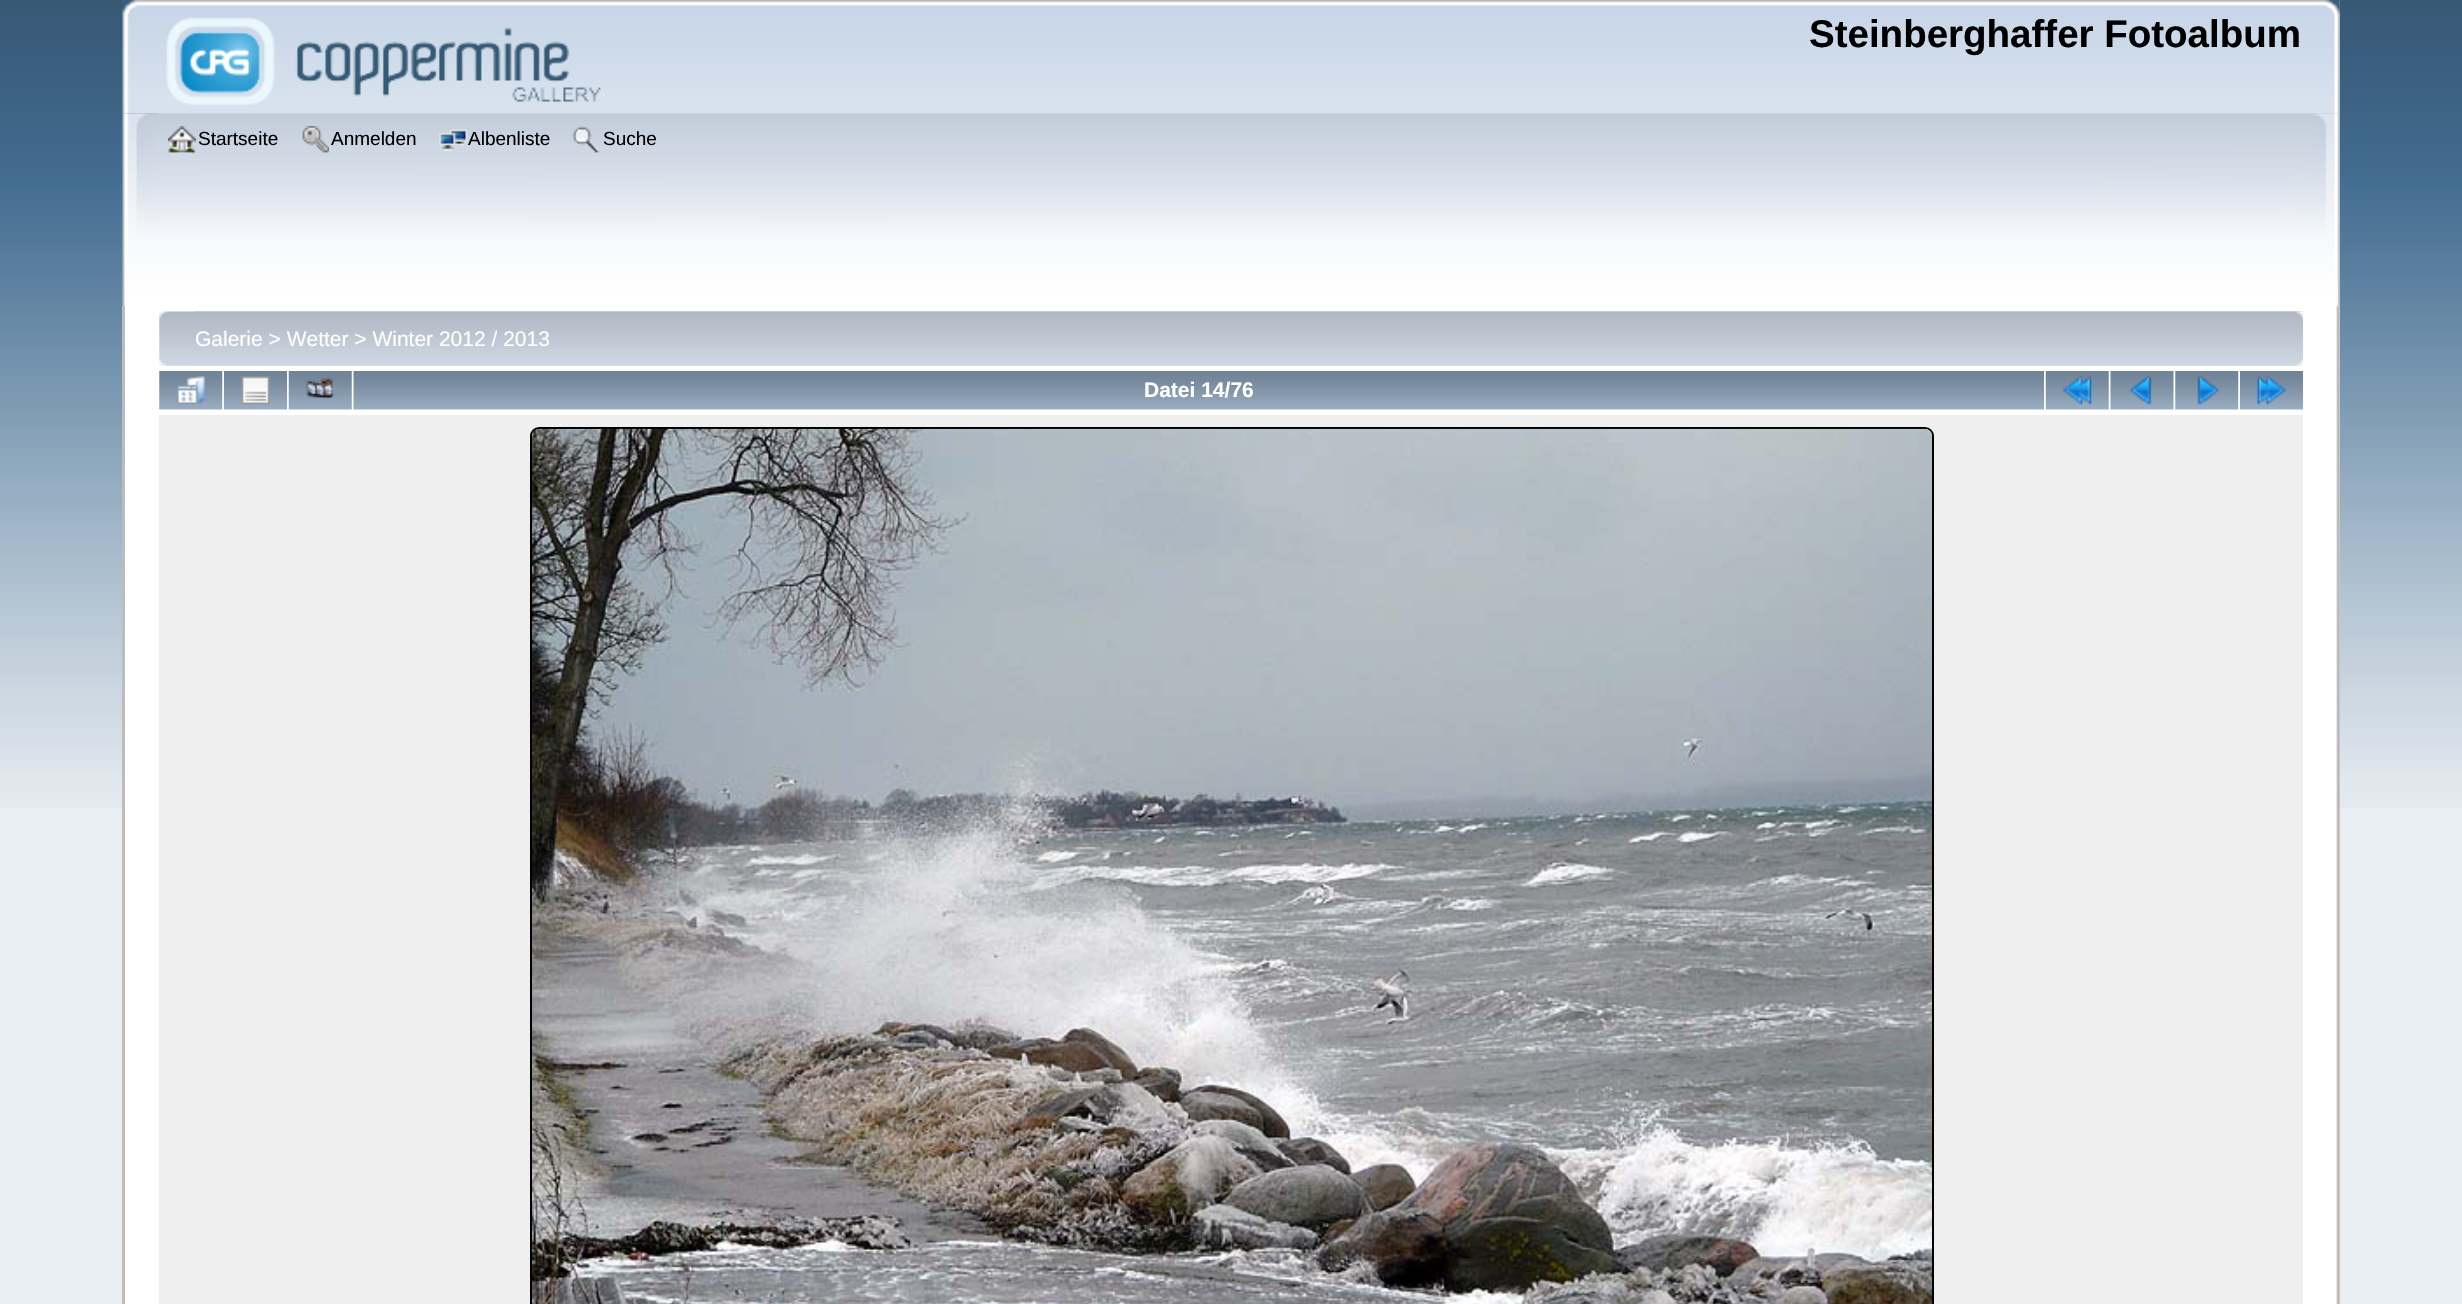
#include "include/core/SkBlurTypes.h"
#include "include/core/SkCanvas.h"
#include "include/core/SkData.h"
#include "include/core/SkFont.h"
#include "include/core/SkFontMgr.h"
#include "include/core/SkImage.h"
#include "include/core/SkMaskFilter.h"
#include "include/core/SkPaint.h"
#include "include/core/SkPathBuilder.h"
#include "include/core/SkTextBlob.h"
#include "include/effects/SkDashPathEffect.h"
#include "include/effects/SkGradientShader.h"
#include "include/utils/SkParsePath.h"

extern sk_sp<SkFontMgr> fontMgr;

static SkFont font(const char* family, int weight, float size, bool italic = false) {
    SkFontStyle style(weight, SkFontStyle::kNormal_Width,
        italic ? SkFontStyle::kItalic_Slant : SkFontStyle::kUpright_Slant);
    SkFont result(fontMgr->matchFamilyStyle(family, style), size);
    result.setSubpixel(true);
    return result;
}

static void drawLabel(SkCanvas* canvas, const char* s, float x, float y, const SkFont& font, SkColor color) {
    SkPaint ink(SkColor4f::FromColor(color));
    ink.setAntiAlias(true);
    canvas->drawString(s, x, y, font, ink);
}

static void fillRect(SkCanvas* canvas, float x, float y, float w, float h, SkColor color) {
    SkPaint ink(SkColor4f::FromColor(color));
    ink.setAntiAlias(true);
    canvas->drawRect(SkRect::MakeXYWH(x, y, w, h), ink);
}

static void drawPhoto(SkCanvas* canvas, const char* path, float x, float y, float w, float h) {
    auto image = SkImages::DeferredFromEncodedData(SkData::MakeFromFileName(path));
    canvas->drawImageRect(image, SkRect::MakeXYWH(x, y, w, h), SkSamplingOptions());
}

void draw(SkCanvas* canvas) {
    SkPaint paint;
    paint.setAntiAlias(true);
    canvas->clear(0xFFE9EEF2);
    drawPhoto(canvas, "assets/img1.png", 0, 0, 2462, 808);
    drawPhoto(canvas, "assets/img2.png", 122, 0, 2218, 114);
    drawPhoto(canvas, "assets/img3.png", 158, 0, 2182, 114);
    drawPhoto(canvas, "assets/img4.png", 166, 17, 435, 88);
    SkFont font1 = font("Liberation Sans", 700, 38.5f);
    drawLabel(canvas, "Steinberghaffer Fotoalbum", 1809, 47, font1, 0xFF000000);
    drawPhoto(canvas, "assets/img5.png", 122, 113, 2218, 193);
    drawPhoto(canvas, "assets/img6.png", 157, 113, 2183, 193);
    drawPhoto(canvas, "assets/img7.png", 168, 126, 28, 28);
    SkFont font2 = font("Liberation Sans", 400, 19);
    drawLabel(canvas, "Startseite", 198, 145, font2, 0xFF000000);
    drawPhoto(canvas, "assets/img8.png", 302, 126, 27, 27);
    drawLabel(canvas, "Anmelden", 331, 145, font2, 0xFF000000);
    drawPhoto(canvas, "assets/img9.png", 439, 129, 29, 22);
    drawLabel(canvas, "Albenliste", 468, 145, font2, 0xFF000000);
    drawPhoto(canvas, "assets/img10.png", 572, 126, 28, 27);
    drawLabel(canvas, "Suche", 603, 145, font2, 0xFF000000);
    fillRect(canvas, 125, 306, 2215, 998, 0xFFFFFFFF);
    fillRect(canvas, 122, 306, 3, 998, 0xFFBCBCBC);
    drawPhoto(canvas, "assets/img11.png", 2336, 306, 4, 998);
    drawPhoto(canvas, "assets/img12.png", 159, 311, 2144, 55);
    drawPhoto(canvas, "assets/img13.png", 194, 311, 2109, 55);
    SkFont font3 = font("Liberation Sans", 400, 21);
    drawLabel(canvas, "Galerie > Wetter > Winter 2012 / 2013", 195, 346, font3, 0xFFFFFFFF);
    drawPhoto(canvas, "assets/img14.png", 159, 371, 64, 39);
    drawPhoto(canvas, "assets/img15.png", 177, 376, 28, 29);
    drawPhoto(canvas, "assets/img16.png", 224, 371, 63, 39);
    drawPhoto(canvas, "assets/img17.png", 241, 376, 29, 29);
    drawPhoto(canvas, "assets/img18.png", 288, 371, 64, 39);
    drawPhoto(canvas, "assets/img19.png", 306, 377, 29, 22);
    drawPhoto(canvas, "assets/img20.png", 353, 371, 1691, 39);
    SkFont font4 = font("Liberation Sans", 700, 21);
    drawLabel(canvas, "Datei 14/76", 1144, 397, font4, 0xFFFFFFFF);
    drawPhoto(canvas, "assets/img18.png", 2045, 371, 64, 39);
    drawPhoto(canvas, "assets/img21.png", 2063, 376, 29, 29);
    drawPhoto(canvas, "assets/img22.png", 2110, 371, 64, 39);
    drawPhoto(canvas, "assets/img23.png", 2129, 376, 23, 29);
    drawPhoto(canvas, "assets/img14.png", 2175, 371, 64, 39);
    drawPhoto(canvas, "assets/img24.png", 2197, 376, 23, 29);
    drawPhoto(canvas, "assets/img16.png", 2240, 371, 63, 39);
    drawPhoto(canvas, "assets/img25.png", 2257, 376, 29, 29);
    fillRect(canvas, 159, 415, 2144, 889, 0xFFEFEFEF);
    paint.setStroke(true);
    paint.setStrokeWidth(2);
    paint.setColor(0xFF000000);
    canvas->drawRoundRect(SkRect::MakeXYWH(531, 428, 1402, 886), 8, 8, paint);
    drawPhoto(canvas, "assets/img26.png", 532, 428, 1400, 876);
}
